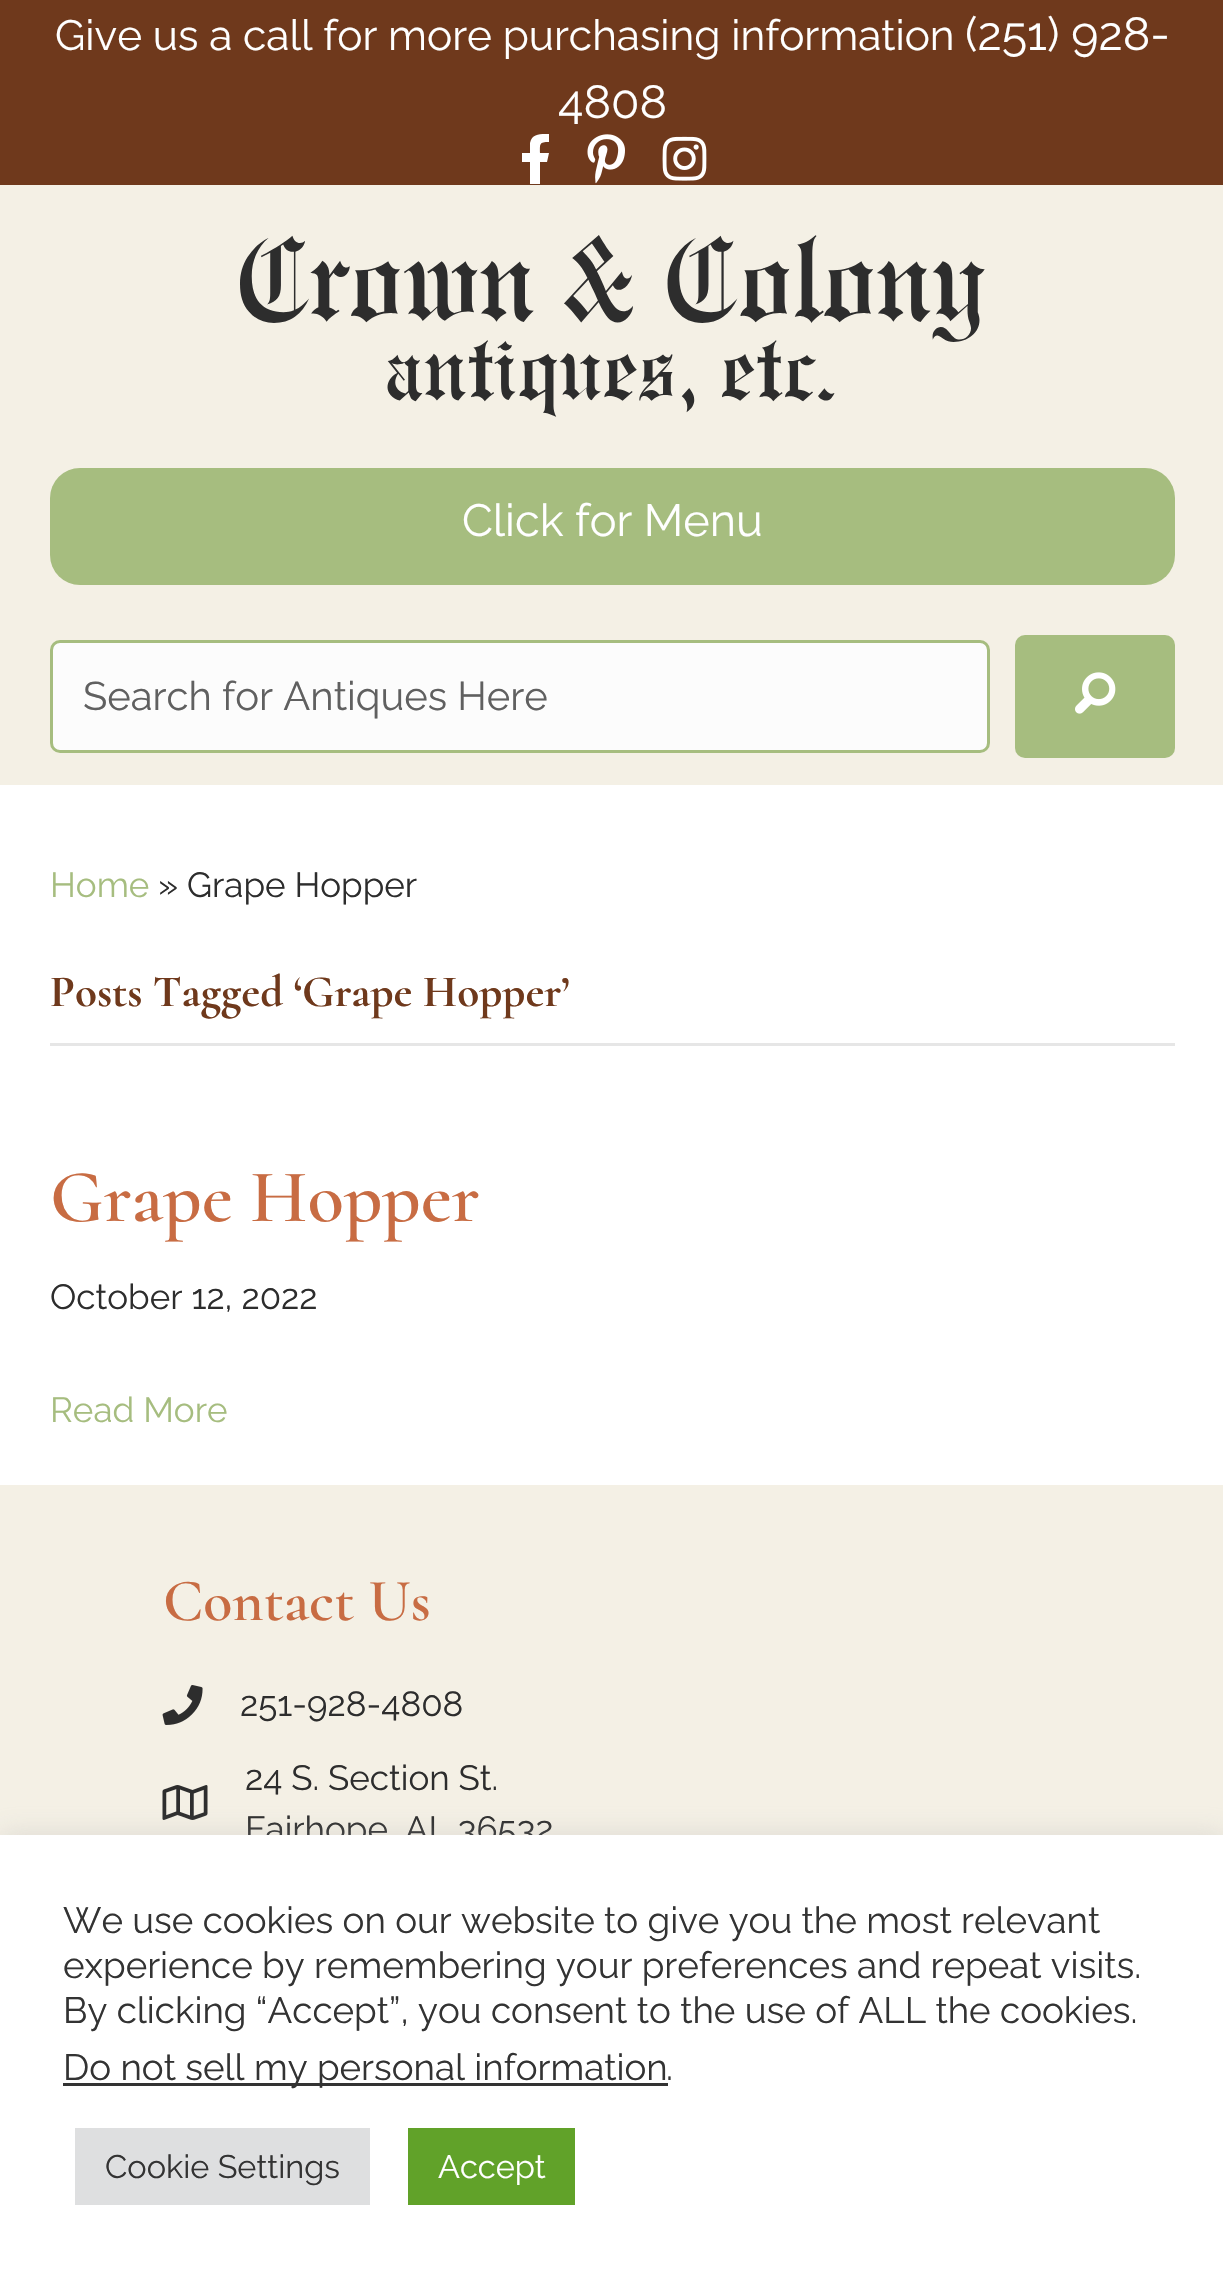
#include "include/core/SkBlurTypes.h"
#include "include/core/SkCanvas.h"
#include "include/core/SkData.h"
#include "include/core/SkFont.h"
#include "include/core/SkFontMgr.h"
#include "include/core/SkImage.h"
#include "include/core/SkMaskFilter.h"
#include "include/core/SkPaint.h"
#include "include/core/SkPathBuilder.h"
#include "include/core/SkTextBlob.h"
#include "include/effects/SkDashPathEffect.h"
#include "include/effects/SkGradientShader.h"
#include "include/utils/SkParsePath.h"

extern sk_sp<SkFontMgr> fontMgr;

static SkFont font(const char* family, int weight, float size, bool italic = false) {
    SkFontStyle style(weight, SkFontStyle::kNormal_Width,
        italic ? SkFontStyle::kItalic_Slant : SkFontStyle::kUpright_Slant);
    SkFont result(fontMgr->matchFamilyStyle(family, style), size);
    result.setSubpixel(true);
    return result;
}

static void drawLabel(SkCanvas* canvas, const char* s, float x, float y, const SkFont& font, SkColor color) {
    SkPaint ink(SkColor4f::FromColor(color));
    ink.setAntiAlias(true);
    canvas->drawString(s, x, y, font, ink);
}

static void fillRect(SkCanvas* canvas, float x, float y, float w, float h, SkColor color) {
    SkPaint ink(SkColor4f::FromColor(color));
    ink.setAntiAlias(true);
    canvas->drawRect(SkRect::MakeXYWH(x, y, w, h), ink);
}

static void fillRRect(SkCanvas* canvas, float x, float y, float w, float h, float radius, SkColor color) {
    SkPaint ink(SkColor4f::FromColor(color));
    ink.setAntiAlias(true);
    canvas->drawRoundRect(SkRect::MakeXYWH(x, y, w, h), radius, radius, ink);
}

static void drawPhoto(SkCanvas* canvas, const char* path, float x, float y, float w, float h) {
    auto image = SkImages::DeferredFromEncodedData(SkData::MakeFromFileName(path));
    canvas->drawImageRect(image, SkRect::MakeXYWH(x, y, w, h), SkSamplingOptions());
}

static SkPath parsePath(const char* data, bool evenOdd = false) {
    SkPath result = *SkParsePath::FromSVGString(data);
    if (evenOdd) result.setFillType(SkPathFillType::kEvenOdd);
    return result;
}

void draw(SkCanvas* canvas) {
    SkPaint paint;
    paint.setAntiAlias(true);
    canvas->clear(0xFFF4F0E5);
    fillRect(canvas, 0, 0, 1223, 185, 0xFF6F391C);
    SkFont font1 = font("Raleway", 400, 42.35f);
    drawLabel(canvas, "Give us a call for more purchasing information", 55, 50, font1, 0xFFFFFFFF);
    SkFont font2 = font("Raleway", 400, 46.5f);
    drawLabel(canvas, "(251) 928-", 965, 50, font2, 0xFFFFFFFF);
    drawLabel(canvas, "4808", 558, 118, font2, 0xFFFFFFFF);
    paint.setColor(0xFFFFFFFF);
    canvas->drawPath(parsePath("M547 162H540V184H530V162H522V153H530V143C532 133 541 134 549 134V142C539 142 540 144 540 153H549Z"), paint);
    drawPhoto(canvas, "assets/img1.png", 587, 134, 38, 50);
    drawPhoto(canvas, "assets/img2.png", 662, 136, 45, 45);
    drawPhoto(canvas, "assets/img3.png", 240, 235, 745, 182);
    fillRRect(canvas, 50, 468, 1125, 117, 30, 0xFFA6BD7F);
    SkFont font3 = font("Raleway", 400, 45);
    drawLabel(canvas, "Click for Menu", 462, 536, font3, 0xFFFFFFFF);
    paint.setColor(0xFFFCFCFC);
    canvas->drawRoundRect(SkRect::MakeXYWH(51.5f, 641.5f, 937, 110), 8.5f, 8.5f, paint);
    paint.setStroke(true);
    paint.setStrokeWidth(3);
    paint.setColor(0xFFA6BD7F);
    canvas->drawRoundRect(SkRect::MakeXYWH(51.5f, 641.5f, 937, 110), 8.5f, 8.5f, paint);
    SkFont font4 = font("Raleway", 400, 40);
    drawLabel(canvas, "Search for Antiques Here", 83, 710, font4, 0xFF606060);
    fillRRect(canvas, 1015, 635, 160, 123, 10, 0xFFA6BD7F);
    drawPhoto(canvas, "assets/img4.png", 1075, 672, 41, 42);
    fillRect(canvas, 0, 785, 1223, 700, 0xFFFFFFFF);
    SkFont font5 = font("Raleway", 400, 35);
    drawLabel(canvas, "Home", 50, 897, font5, 0xFFA6BD7F);
    drawLabel(canvas, "» Grape Hopper", 158, 897, font5, 0xFF2D2D2D);
    fillRect(canvas, 50, 1043, 1125, 3, 0xFFE6E6E6);
    SkFont font6 = font("Cormorant", 700, 45);
    drawLabel(canvas, "Posts Tagged ‘Grape Hopper’", 50, 1006, font6, 0xFF6F391C);
    SkFont font7 = font("Cormorant", 600, 75);
    drawLabel(canvas, "Grape Hopper", 50, 1221, font7, 0xFFC86C43);
    drawLabel(canvas, "October 12, 2022", 50, 1309, font5, 0xFF2D2D2D);
    drawLabel(canvas, "Read More", 50, 1422, font5, 0xFFA6BD7F);
    SkFont font8 = font("Cormorant", 600, 60);
    drawLabel(canvas, "Contact Us", 163, 1620, font8, 0xFFC86C43);
    drawPhoto(canvas, "assets/img5.png", 162, 1685, 41, 40);
    drawLabel(canvas, "251-928-4808", 240, 1716, font5, 0xFF2D2D2D);
    drawPhoto(canvas, "assets/img6.png", 162, 1785, 46, 35);
    drawLabel(canvas, "24 S. Section St.", 245, 1790, font5, 0xFF2D2D2D);
    drawLabel(canvas, "Fairhope, AL 36532", 245, 1841, font5, 0xFF2D2D2D);
    paint.setStroke(false);
    paint.setColor(0x4DACABAB);
    paint.setMaskFilter(SkMaskFilter::MakeBlur(kNormal_SkBlurStyle, 12.5f));
    canvas->drawRect(SkRect::MakeXYWH(0, 1833, 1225, 445), paint);
    paint.setMaskFilter(nullptr);
    fillRect(canvas, 0, 1835, 1223, 443, 0xFFFFFFFF);
    SkFont font9 = font("Raleway", 400, 36.7f);
    drawLabel(canvas, "We use cookies on our website to give you the most relevant", 63, 1933, font9, 0xFF333333);
    drawLabel(canvas, "experience by remembering your preferences and repeat visits.", 63, 1978, font9, 0xFF333333);
    drawLabel(canvas, "By clicking “Accept”, you consent to the use of ALL the cookies.", 63, 2023, font9, 0xFF333333);
    fillRect(canvas, 63, 2083, 605, 3, 0xFF333333);
    drawLabel(canvas, "Do not sell my personal information", 63, 2080, font9, 0xFF333333);
    drawLabel(canvas, ".", 666, 2080, font9, 0xFF333333);
    fillRect(canvas, 75, 2128, 295, 77, 0xFFDEDFE0);
    SkFont font10 = font("Raleway", 400, 32.5f);
    drawLabel(canvas, "Cookie Settings", 105, 2178, font10, 0xFF333333);
    fillRect(canvas, 408, 2128, 167, 77, 0xFF61A229);
    drawLabel(canvas, "Accept", 438, 2178, font10, 0xFFFFFFFF);
}
